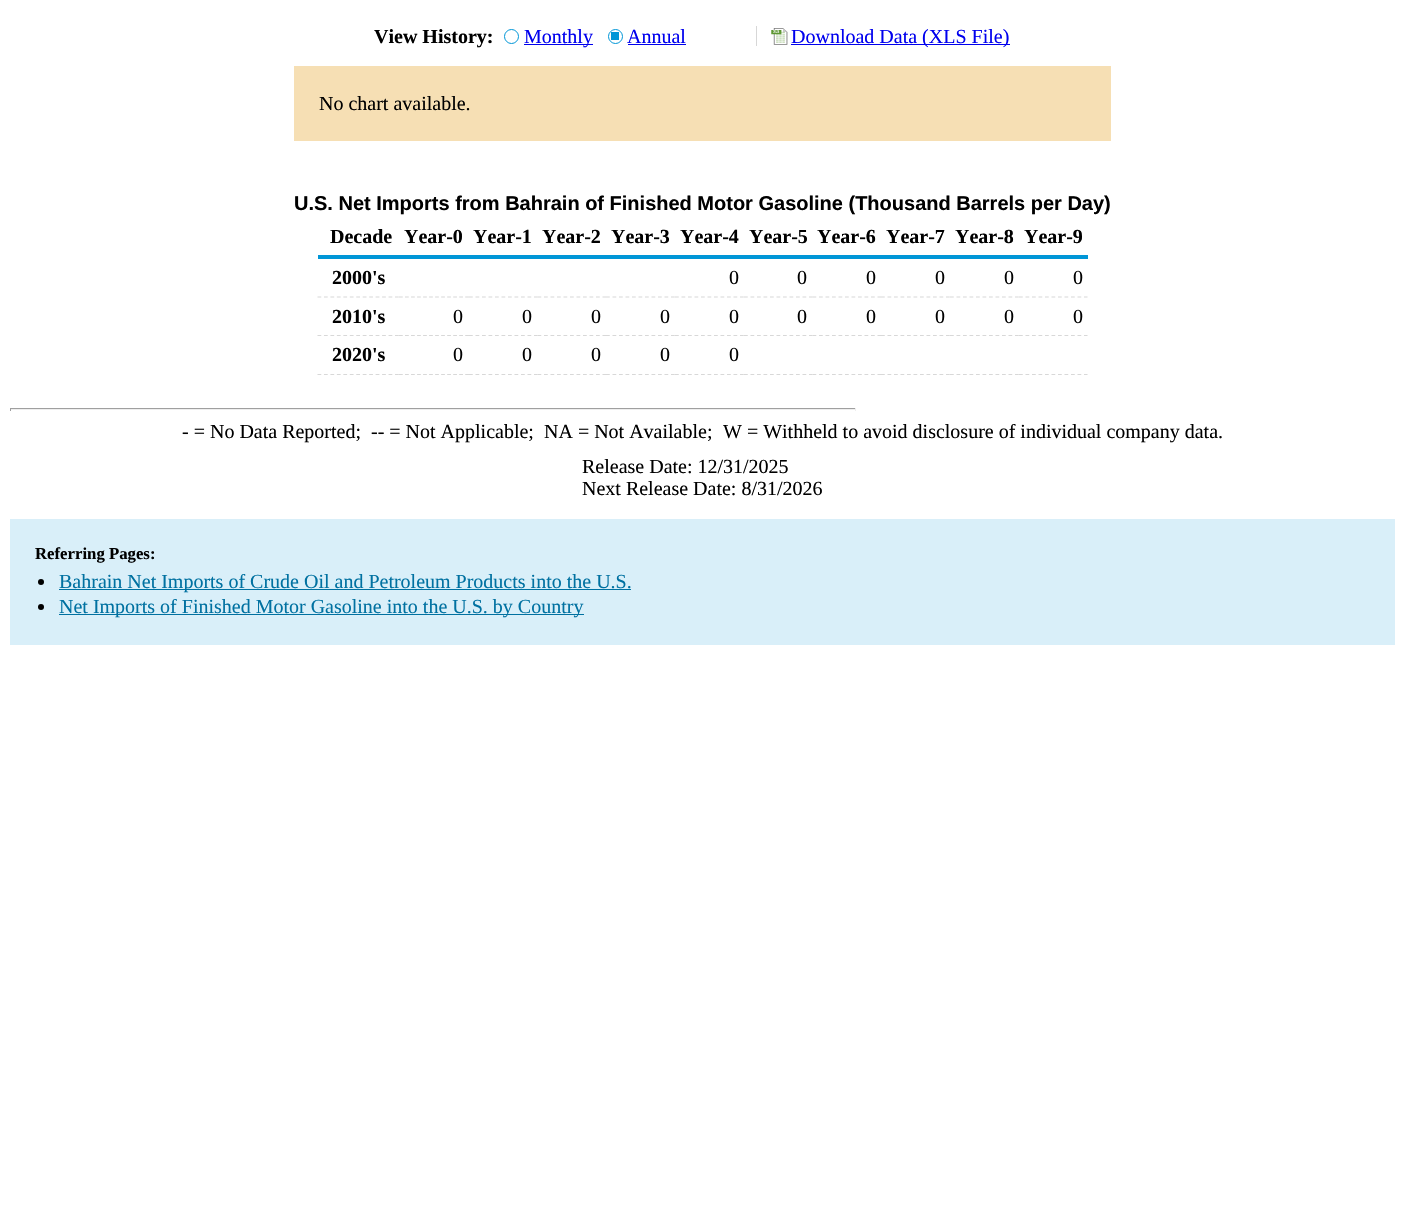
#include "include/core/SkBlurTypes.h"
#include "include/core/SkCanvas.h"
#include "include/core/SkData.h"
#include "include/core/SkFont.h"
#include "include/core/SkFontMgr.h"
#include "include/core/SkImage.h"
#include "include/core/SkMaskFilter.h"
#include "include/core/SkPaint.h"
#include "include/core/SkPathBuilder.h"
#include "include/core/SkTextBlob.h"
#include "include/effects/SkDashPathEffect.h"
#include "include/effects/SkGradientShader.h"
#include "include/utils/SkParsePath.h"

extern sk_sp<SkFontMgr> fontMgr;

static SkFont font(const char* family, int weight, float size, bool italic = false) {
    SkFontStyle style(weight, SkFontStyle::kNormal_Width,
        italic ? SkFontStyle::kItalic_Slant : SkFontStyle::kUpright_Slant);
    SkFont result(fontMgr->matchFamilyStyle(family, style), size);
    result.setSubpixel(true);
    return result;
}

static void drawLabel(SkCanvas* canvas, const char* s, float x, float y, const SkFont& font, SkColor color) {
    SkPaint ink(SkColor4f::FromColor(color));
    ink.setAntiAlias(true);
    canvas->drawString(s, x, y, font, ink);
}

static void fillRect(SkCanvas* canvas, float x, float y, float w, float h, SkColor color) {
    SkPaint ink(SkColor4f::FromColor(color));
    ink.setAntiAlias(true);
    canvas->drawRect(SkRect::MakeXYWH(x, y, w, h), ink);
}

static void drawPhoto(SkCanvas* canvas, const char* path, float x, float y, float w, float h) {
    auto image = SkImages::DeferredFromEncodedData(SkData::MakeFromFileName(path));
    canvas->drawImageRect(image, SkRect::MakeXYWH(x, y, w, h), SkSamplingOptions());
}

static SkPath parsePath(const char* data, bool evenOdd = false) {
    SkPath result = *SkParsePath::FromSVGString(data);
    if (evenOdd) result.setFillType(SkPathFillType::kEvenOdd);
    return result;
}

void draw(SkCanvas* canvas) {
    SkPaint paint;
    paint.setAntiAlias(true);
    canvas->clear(0xFFFFFFFF);
    SkFont font1 = font("Liberation Serif", 700, 20);
    drawLabel(canvas, "View History:", 374, 43, font1, 0xFF000000);
    paint.setStroke(true);
    paint.setStrokeWidth(1);
    paint.setColor(0xFF0096D7);
    canvas->drawCircle(511.5f, 36.5f, 7, paint);
    fillRect(canvas, 524, 44, 69, 1, 0xFF0000EE);
    SkFont font2 = font("Liberation Serif", 400, 20);
    drawLabel(canvas, "Monthly", 524, 43, font2, 0xFF0000EE);
    fillRect(canvas, 611, 32, 8, 8, 0xFF0096D7);
    canvas->drawCircle(615.5f, 36.5f, 7, paint);
    drawLabel(canvas, "Annual", 627, 43, font2, 0xFF0000EE);
    fillRect(canvas, 628, 44, 58, 1, 0xFF0000EE);
    fillRect(canvas, 756, 26, 1, 20, 0xFFD7D7D7);
    drawPhoto(canvas, "assets/img1.png", 771, 28, 17, 17);
    fillRect(canvas, 791, 44, 219, 1, 0xFF0000EE);
    drawLabel(canvas, "Download Data (XLS File)", 791, 43, font2, 0xFF0000EE);
    fillRect(canvas, 294, 66, 817, 75, 0xFFF6DFB4);
    drawLabel(canvas, "No chart available.", 319, 110, font2, 0xFF000000);
    SkFont font3 = font("Liberation Sans", 700, 20);
    drawLabel(canvas, "U.S. Net Imports from Bahrain of Finished Motor Gasoline (Thousand Barrels per Day)", 294, 210, font3, 0xFF000000);
    fillRect(canvas, 318, 255, 770, 4, 0xFF0096D7);
    drawLabel(canvas, "Decade", 330, 243, font1, 0xFF000000);
    drawLabel(canvas, "Year-0", 404, 243, font1, 0xFF000000);
    drawLabel(canvas, "Year-1", 473, 243, font1, 0xFF000000);
    drawLabel(canvas, "Year-2", 542, 243, font1, 0xFF000000);
    drawLabel(canvas, "Year-3", 611, 243, font1, 0xFF000000);
    drawLabel(canvas, "Year-4", 680, 243, font1, 0xFF000000);
    drawLabel(canvas, "Year-5", 749, 243, font1, 0xFF000000);
    drawLabel(canvas, "Year-6", 817, 243, font1, 0xFF000000);
    drawLabel(canvas, "Year-7", 886, 243, font1, 0xFF000000);
    drawLabel(canvas, "Year-8", 955, 243, font1, 0xFF000000);
    drawLabel(canvas, "Year-9", 1024, 243, font1, 0xFF000000);
    paint.setStrokeWidth(1.2f);
    paint.setColor(0xFFD8D8D8);
    paint.setPathEffect(SkDashPathEffect::Make({{3.75f, 2.71f}}, 0));
    canvas->drawPath(parsePath("M317.5 297H399"), paint);
    paint.setPathEffect(nullptr);
    drawLabel(canvas, "2000's", 332, 284, font1, 0xFF000000);
    paint.setPathEffect(SkDashPathEffect::Make({{3.75f, 2.75f}}, 0));
    canvas->drawPath(parsePath("M675 297H744"), paint);
    paint.setPathEffect(nullptr);
    drawLabel(canvas, "0", 729, 284, font2, 0xFF000000);
    paint.setPathEffect(SkDashPathEffect::Make({{3.75f, 2.75f}}, 0));
    canvas->drawPath(parsePath("M744 297H812.5"), paint);
    paint.setPathEffect(nullptr);
    drawLabel(canvas, "0", 797, 284, font2, 0xFF000000);
    paint.setPathEffect(SkDashPathEffect::Make({{3.75f, 2.75f}}, 0));
    canvas->drawPath(parsePath("M812.5 297H881"), paint);
    paint.setPathEffect(nullptr);
    drawLabel(canvas, "0", 866, 284, font2, 0xFF000000);
    paint.setPathEffect(SkDashPathEffect::Make({{3.75f, 2.75f}}, 0));
    canvas->drawPath(parsePath("M881 297H950"), paint);
    paint.setPathEffect(nullptr);
    drawLabel(canvas, "0", 935, 284, font2, 0xFF000000);
    paint.setPathEffect(SkDashPathEffect::Make({{3.75f, 2.75f}}, 0));
    canvas->drawPath(parsePath("M950 297H1019"), paint);
    paint.setPathEffect(nullptr);
    drawLabel(canvas, "0", 1004, 284, font2, 0xFF000000);
    paint.setPathEffect(SkDashPathEffect::Make({{3.75f, 2.75f}}, 0));
    canvas->drawPath(parsePath("M1019 297H1087.5"), paint);
    paint.setPathEffect(nullptr);
    drawLabel(canvas, "0", 1073, 284, font2, 0xFF000000);
    paint.setPathEffect(SkDashPathEffect::Make({{3.75f, 2.27f}}, 0));
    canvas->drawPath(parsePath("M399 297H469"), paint);
    paint.setPathEffect(nullptr);
    paint.setPathEffect(SkDashPathEffect::Make({{3.75f, 2.75f}}, 0));
    canvas->drawPath(parsePath("M469 297H537.5"), paint);
    paint.setPathEffect(nullptr);
    paint.setPathEffect(SkDashPathEffect::Make({{3.75f, 2.75f}}, 0));
    canvas->drawPath(parsePath("M537.5 297H606"), paint);
    paint.setPathEffect(nullptr);
    paint.setPathEffect(SkDashPathEffect::Make({{3.75f, 2.75f}}, 0));
    canvas->drawPath(parsePath("M606 297H675"), paint);
    paint.setPathEffect(nullptr);
    paint.setPathEffect(SkDashPathEffect::Make({{3.75f, 2.71f}}, 0));
    canvas->drawPath(parsePath("M317.5 335.5H399"), paint);
    paint.setPathEffect(nullptr);
    drawLabel(canvas, "2010's", 332, 323, font1, 0xFF000000);
    paint.setPathEffect(SkDashPathEffect::Make({{3.75f, 2.27f}}, 0));
    canvas->drawPath(parsePath("M399 335.5H469"), paint);
    paint.setPathEffect(nullptr);
    drawLabel(canvas, "0", 453, 323, font2, 0xFF000000);
    paint.setPathEffect(SkDashPathEffect::Make({{3.75f, 2.75f}}, 0));
    canvas->drawPath(parsePath("M469 335.5H537.5"), paint);
    paint.setPathEffect(nullptr);
    drawLabel(canvas, "0", 522, 323, font2, 0xFF000000);
    paint.setPathEffect(SkDashPathEffect::Make({{3.75f, 2.75f}}, 0));
    canvas->drawPath(parsePath("M537.5 335.5H606"), paint);
    paint.setPathEffect(nullptr);
    drawLabel(canvas, "0", 591, 323, font2, 0xFF000000);
    paint.setPathEffect(SkDashPathEffect::Make({{3.75f, 2.75f}}, 0));
    canvas->drawPath(parsePath("M606 335.5H675"), paint);
    paint.setPathEffect(nullptr);
    drawLabel(canvas, "0", 660, 323, font2, 0xFF000000);
    paint.setPathEffect(SkDashPathEffect::Make({{3.75f, 2.75f}}, 0));
    canvas->drawPath(parsePath("M675 335.5H744"), paint);
    paint.setPathEffect(nullptr);
    drawLabel(canvas, "0", 729, 323, font2, 0xFF000000);
    paint.setPathEffect(SkDashPathEffect::Make({{3.75f, 2.75f}}, 0));
    canvas->drawPath(parsePath("M744 335.5H812.5"), paint);
    paint.setPathEffect(nullptr);
    drawLabel(canvas, "0", 797, 323, font2, 0xFF000000);
    paint.setPathEffect(SkDashPathEffect::Make({{3.75f, 2.75f}}, 0));
    canvas->drawPath(parsePath("M812.5 335.5H881"), paint);
    paint.setPathEffect(nullptr);
    drawLabel(canvas, "0", 866, 323, font2, 0xFF000000);
    paint.setPathEffect(SkDashPathEffect::Make({{3.75f, 2.75f}}, 0));
    canvas->drawPath(parsePath("M881 335.5H950"), paint);
    paint.setPathEffect(nullptr);
    drawLabel(canvas, "0", 935, 323, font2, 0xFF000000);
    paint.setPathEffect(SkDashPathEffect::Make({{3.75f, 2.75f}}, 0));
    canvas->drawPath(parsePath("M950 335.5H1019"), paint);
    paint.setPathEffect(nullptr);
    drawLabel(canvas, "0", 1004, 323, font2, 0xFF000000);
    paint.setPathEffect(SkDashPathEffect::Make({{3.75f, 2.75f}}, 0));
    canvas->drawPath(parsePath("M1019 335.5H1087.5"), paint);
    paint.setPathEffect(nullptr);
    drawLabel(canvas, "0", 1073, 323, font2, 0xFF000000);
    paint.setPathEffect(SkDashPathEffect::Make({{3.75f, 2.71f}}, 0));
    canvas->drawPath(parsePath("M317.5 374.5H399"), paint);
    paint.setPathEffect(nullptr);
    drawLabel(canvas, "2020's", 332, 361, font1, 0xFF000000);
    paint.setPathEffect(SkDashPathEffect::Make({{3.75f, 2.27f}}, 0));
    canvas->drawPath(parsePath("M399 374.5H469"), paint);
    paint.setPathEffect(nullptr);
    drawLabel(canvas, "0", 453, 361, font2, 0xFF000000);
    paint.setPathEffect(SkDashPathEffect::Make({{3.75f, 2.75f}}, 0));
    canvas->drawPath(parsePath("M469 374.5H537.5"), paint);
    paint.setPathEffect(nullptr);
    drawLabel(canvas, "0", 522, 361, font2, 0xFF000000);
    paint.setPathEffect(SkDashPathEffect::Make({{3.75f, 2.75f}}, 0));
    canvas->drawPath(parsePath("M537.5 374.5H606"), paint);
    paint.setPathEffect(nullptr);
    drawLabel(canvas, "0", 591, 361, font2, 0xFF000000);
    paint.setPathEffect(SkDashPathEffect::Make({{3.75f, 2.75f}}, 0));
    canvas->drawPath(parsePath("M606 374.5H675"), paint);
    paint.setPathEffect(nullptr);
    drawLabel(canvas, "0", 660, 361, font2, 0xFF000000);
    paint.setPathEffect(SkDashPathEffect::Make({{3.75f, 2.75f}}, 0));
    canvas->drawPath(parsePath("M675 374.5H744"), paint);
    paint.setPathEffect(nullptr);
    drawLabel(canvas, "0", 729, 361, font2, 0xFF000000);
    paint.setPathEffect(SkDashPathEffect::Make({{3.75f, 2.75f}}, 0));
    canvas->drawPath(parsePath("M744 374.5H812.5"), paint);
    paint.setPathEffect(nullptr);
    paint.setPathEffect(SkDashPathEffect::Make({{3.75f, 2.75f}}, 0));
    canvas->drawPath(parsePath("M812.5 374.5H881"), paint);
    paint.setPathEffect(nullptr);
    paint.setPathEffect(SkDashPathEffect::Make({{3.75f, 2.75f}}, 0));
    canvas->drawPath(parsePath("M881 374.5H950"), paint);
    paint.setPathEffect(nullptr);
    paint.setPathEffect(SkDashPathEffect::Make({{3.75f, 2.75f}}, 0));
    canvas->drawPath(parsePath("M950 374.5H1019"), paint);
    paint.setPathEffect(nullptr);
    paint.setPathEffect(SkDashPathEffect::Make({{3.75f, 2.75f}}, 0));
    canvas->drawPath(parsePath("M1019 374.5H1087.5"), paint);
    paint.setPathEffect(nullptr);
    fillRect(canvas, 10, 408, 846, 1, 0xFF9F9F9F);
    fillRect(canvas, 855, 408, 1, 3, 0xFFEEEEEE);
    fillRect(canvas, 10, 409, 846, 1, 0xFFEEEEEE);
    fillRect(canvas, 10, 408, 1, 3, 0xFF9F9F9F);
    drawLabel(canvas, "- = No Data Reported;", 182, 438, font2, 0xFF000000);
    drawLabel(canvas, "-- = Not Applicable;", 371, 438, font2, 0xFF000000);
    drawLabel(canvas, "NA = Not Available;", 544, 438, font2, 0xFF000000);
    drawLabel(canvas, "W = Withheld to avoid disclosure of individual company data.", 723, 438, font2, 0xFF000000);
    drawLabel(canvas, "Release Date: 12/31/2025", 582, 473, font2, 0xFF000000);
    drawLabel(canvas, "Next Release Date: 8/31/2026", 582, 495, font2, 0xFF000000);
    fillRect(canvas, 10, 519, 1385, 126, 0xFFD9EFF9);
    SkFont font4 = font("Liberation Serif", 700, 16.75f);
    drawLabel(canvas, "Referring Pages:", 35, 559, font4, 0xFF000000);
    paint.setStroke(false);
    paint.setColor(0xFF000000);
    canvas->drawCircle(41, 582, 3, paint);
    fillRect(canvas, 59, 589, 572, 1, 0xFF0071A1);
    drawLabel(canvas, "Bahrain Net Imports of Crude Oil and Petroleum Products into the U.S.", 59, 588, font2, 0xFF0071A1);
    canvas->drawCircle(41, 607, 3, paint);
    fillRect(canvas, 59, 614, 525, 1, 0xFF0071A1);
    drawLabel(canvas, "Net Imports of Finished Motor Gasoline into the U.S. by Country", 59, 613, font2, 0xFF0071A1);
}
